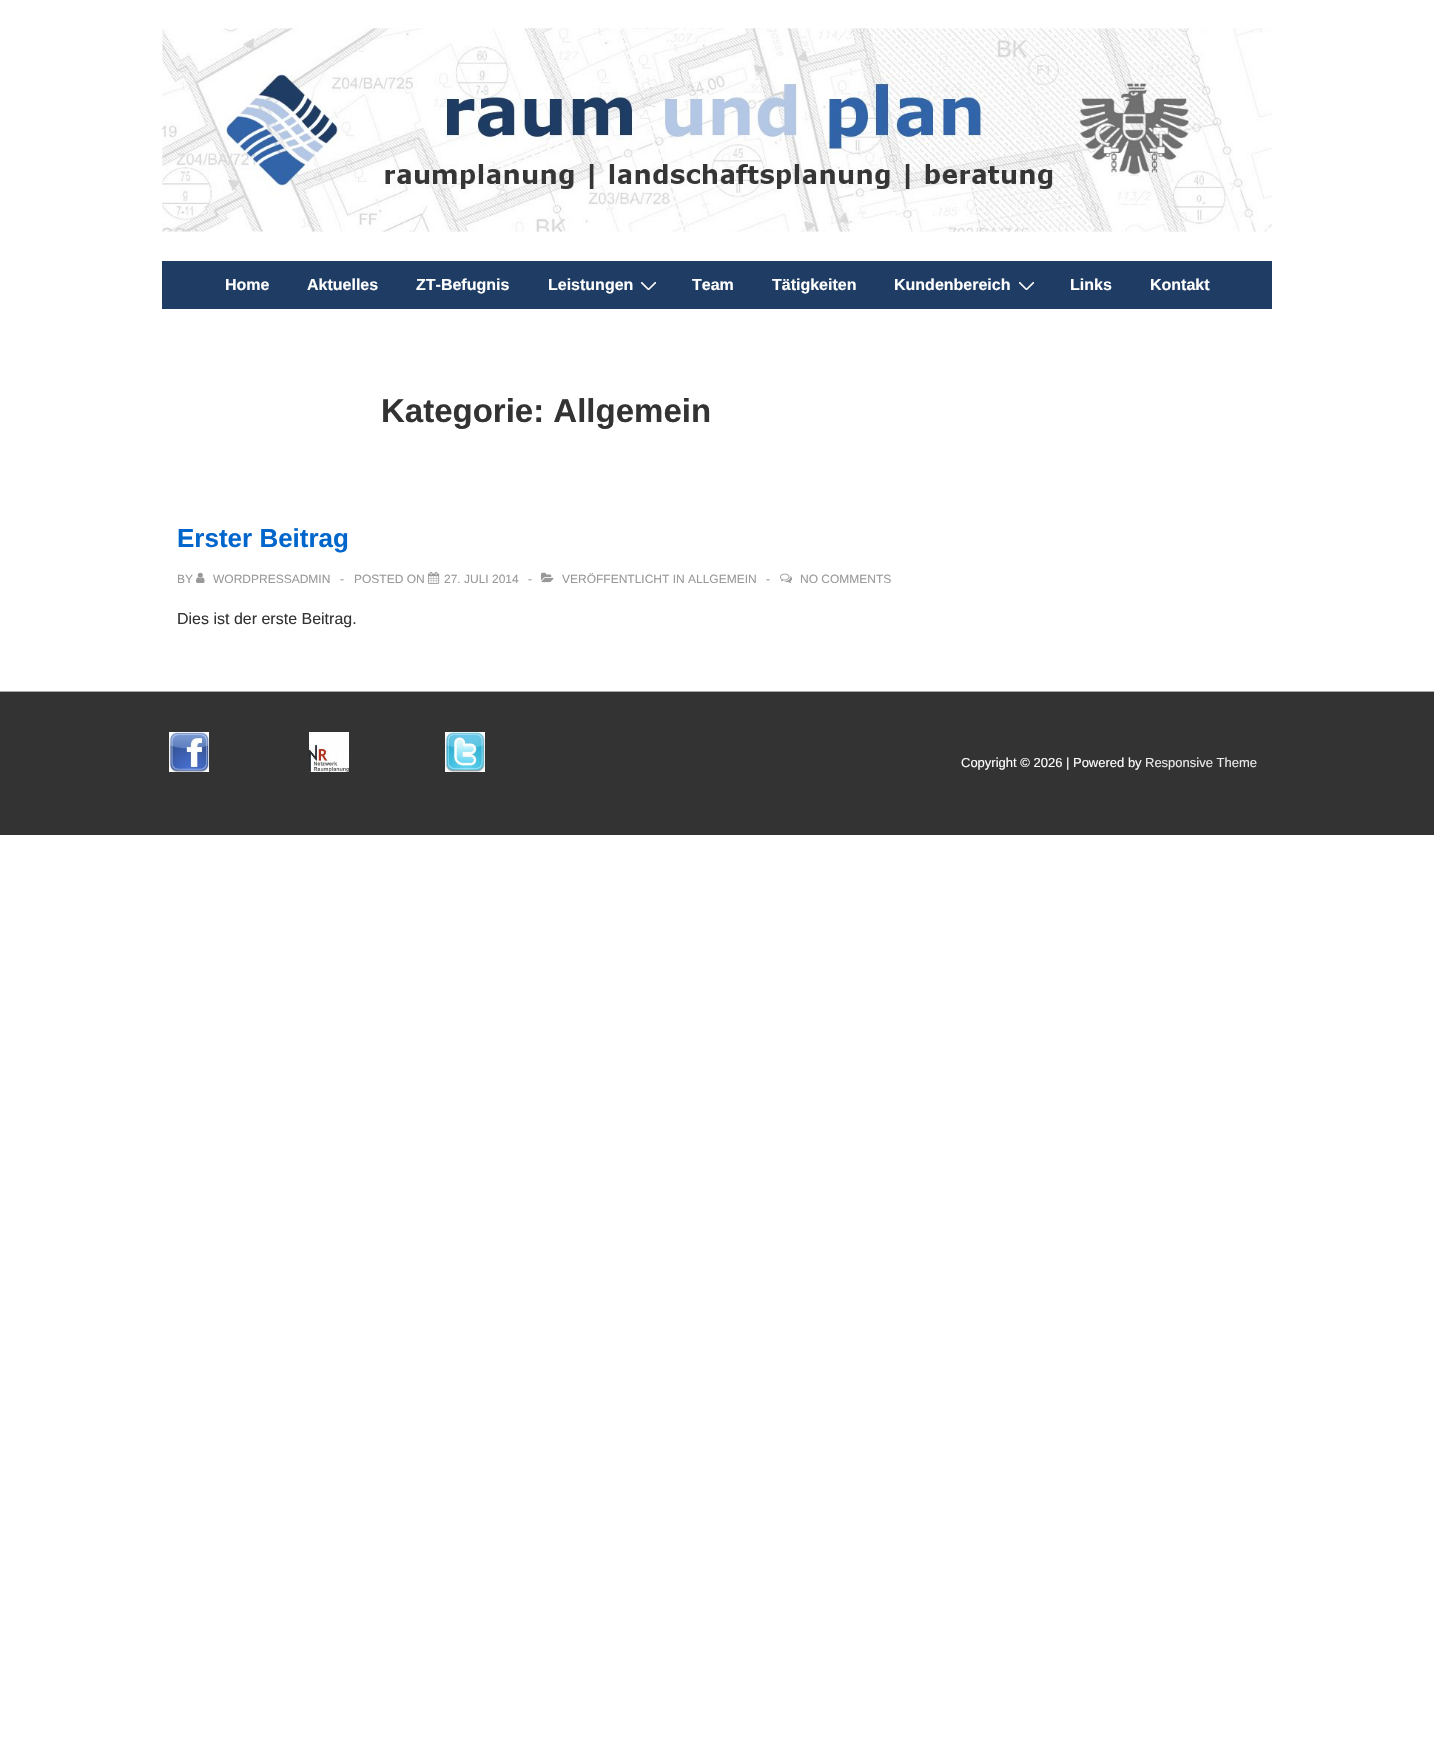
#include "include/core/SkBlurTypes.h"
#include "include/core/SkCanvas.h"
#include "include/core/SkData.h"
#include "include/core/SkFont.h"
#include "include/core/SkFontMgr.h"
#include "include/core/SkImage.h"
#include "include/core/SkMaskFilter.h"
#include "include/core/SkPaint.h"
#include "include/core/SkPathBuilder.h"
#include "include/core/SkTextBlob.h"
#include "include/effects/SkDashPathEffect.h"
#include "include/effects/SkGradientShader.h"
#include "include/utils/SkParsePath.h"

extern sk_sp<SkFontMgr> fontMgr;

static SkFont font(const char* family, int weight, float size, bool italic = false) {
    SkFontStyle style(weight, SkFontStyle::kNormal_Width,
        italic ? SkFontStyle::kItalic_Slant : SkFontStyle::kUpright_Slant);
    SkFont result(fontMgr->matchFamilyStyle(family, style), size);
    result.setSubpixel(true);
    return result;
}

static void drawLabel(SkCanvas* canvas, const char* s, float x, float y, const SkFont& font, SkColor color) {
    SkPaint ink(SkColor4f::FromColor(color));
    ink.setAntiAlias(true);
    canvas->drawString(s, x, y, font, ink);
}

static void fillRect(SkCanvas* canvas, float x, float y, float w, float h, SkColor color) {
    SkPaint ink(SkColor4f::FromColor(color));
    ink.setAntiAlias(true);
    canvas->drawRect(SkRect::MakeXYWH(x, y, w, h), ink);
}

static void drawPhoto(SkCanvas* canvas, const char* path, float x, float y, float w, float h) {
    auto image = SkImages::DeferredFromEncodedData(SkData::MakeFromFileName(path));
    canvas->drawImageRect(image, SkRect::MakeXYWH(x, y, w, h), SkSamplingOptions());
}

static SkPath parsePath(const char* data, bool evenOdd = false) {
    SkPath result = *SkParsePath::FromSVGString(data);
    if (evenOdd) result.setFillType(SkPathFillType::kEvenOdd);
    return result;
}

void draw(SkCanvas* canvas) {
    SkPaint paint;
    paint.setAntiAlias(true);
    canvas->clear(0xFFFFFFFF);
    drawPhoto(canvas, "assets/img1.png", 162, 28, 1110, 204);
    fillRect(canvas, 162, 261, 1110, 48, 0xFF1E3C64);
    SkFont font1 = font("Liberation Sans", 700, 16);
    drawLabel(canvas, "Home", 225, 290, font1, 0xFFFFFFFF);
    drawLabel(canvas, "Aktuelles", 307, 290, font1, 0xFFFFFFFF);
    drawLabel(canvas, "ZT-Befugnis", 416, 290, font1, 0xFFFFFFFF);
    drawLabel(canvas, "Leistungen", 548, 290, font1, 0xFFFFFFFF);
    canvas->save();
    canvas->clipRect(SkRect::MakeXYWH(641, 282, 15, 8));
    paint.setStroke(true);
    paint.setStrokeWidth(1.6f);
    paint.setStrokeCap(SkPaint::kRound_Cap);
    paint.setColor(0xFFFCFCFC);
    canvas->drawPath(parsePath("M641.5 282.5L648.5 289.5L655.5 282.5"), paint);
    canvas->restore();
    drawLabel(canvas, "Team", 692, 290, font1, 0xFFFFFFFF);
    drawLabel(canvas, "Tätigkeiten", 772, 290, font1, 0xFFFFFFFF);
    drawLabel(canvas, "Kundenbereich", 894, 290, font1, 0xFFFFFFFF);
    canvas->save();
    canvas->clipRect(SkRect::MakeXYWH(1019, 282, 15, 8));
    canvas->drawPath(parsePath("M1019.5 282.5L1026.5 289.5L1033.5 282.5"), paint);
    canvas->restore();
    drawLabel(canvas, "Links", 1070, 290, font1, 0xFFFFFFFF);
    drawLabel(canvas, "Kontakt", 1150, 290, font1, 0xFFFFFFFF);
    SkFont font2 = font("Liberation Sans", 700, 33);
    drawLabel(canvas, "Kategorie: Allgemein", 381, 422, font2, 0xFF333333);
    SkFont font3 = font("Liberation Sans", 700, 26);
    drawLabel(canvas, "Erster Beitrag", 177, 547, font3, 0xFF0066CC);
    SkFont font4 = font("Liberation Sans", 400, 12);
    drawLabel(canvas, "BY", 177, 583, font4, 0xFF999999);
    drawPhoto(canvas, "assets/img2.png", 196, 572, 9, 11);
    drawLabel(canvas, "WORDPRESSADMIN", 213, 583, font4, 0xFF999999);
    drawLabel(canvas, "-", 340, 583, font4, 0xFF999999);
    drawLabel(canvas, "POSTED ON", 354, 583, font4, 0xFF999999);
    drawPhoto(canvas, "assets/img3.png", 428, 571, 12, 13);
    drawLabel(canvas, "27. JULI 2014", 444, 583, font4, 0xFF999999);
    drawLabel(canvas, "-", 528, 583, font4, 0xFF999999);
    drawPhoto(canvas, "assets/img4.png", 541, 572, 13, 11);
    drawLabel(canvas, "VERÖFFENTLICHT IN ALLGEMEIN", 562, 583, font4, 0xFF999999);
    drawLabel(canvas, "-", 766, 583, font4, 0xFF999999);
    drawPhoto(canvas, "assets/img5.png", 780, 573, 12, 10);
    drawLabel(canvas, "NO COMMENTS", 800, 583, font4, 0xFF999999);
    SkFont font5 = font("Liberation Sans", 400, 16);
    drawLabel(canvas, "Dies ist der erste Beitrag.", 177, 624, font5, 0xFF333333);
    fillRect(canvas, 0, 692, 1434, 143, 0xFF333333);
    fillRect(canvas, 0, 691, 1434, 1, 0xFFAAAAAA);
    drawPhoto(canvas, "assets/img6.png", 169, 732, 40, 40);
    drawPhoto(canvas, "assets/img7.png", 309, 732, 40, 40);
    drawPhoto(canvas, "assets/img8.png", 445, 732, 40, 40);
    SkFont font6 = font("Liberation Sans", 400, 13);
    drawLabel(canvas, "Copyright © 2026 | Powered by", 961, 767, font6, 0xFFFFFFFF);
    drawLabel(canvas, "Responsive Theme", 1145, 767, font6, 0xFFEAEAEA);
}
